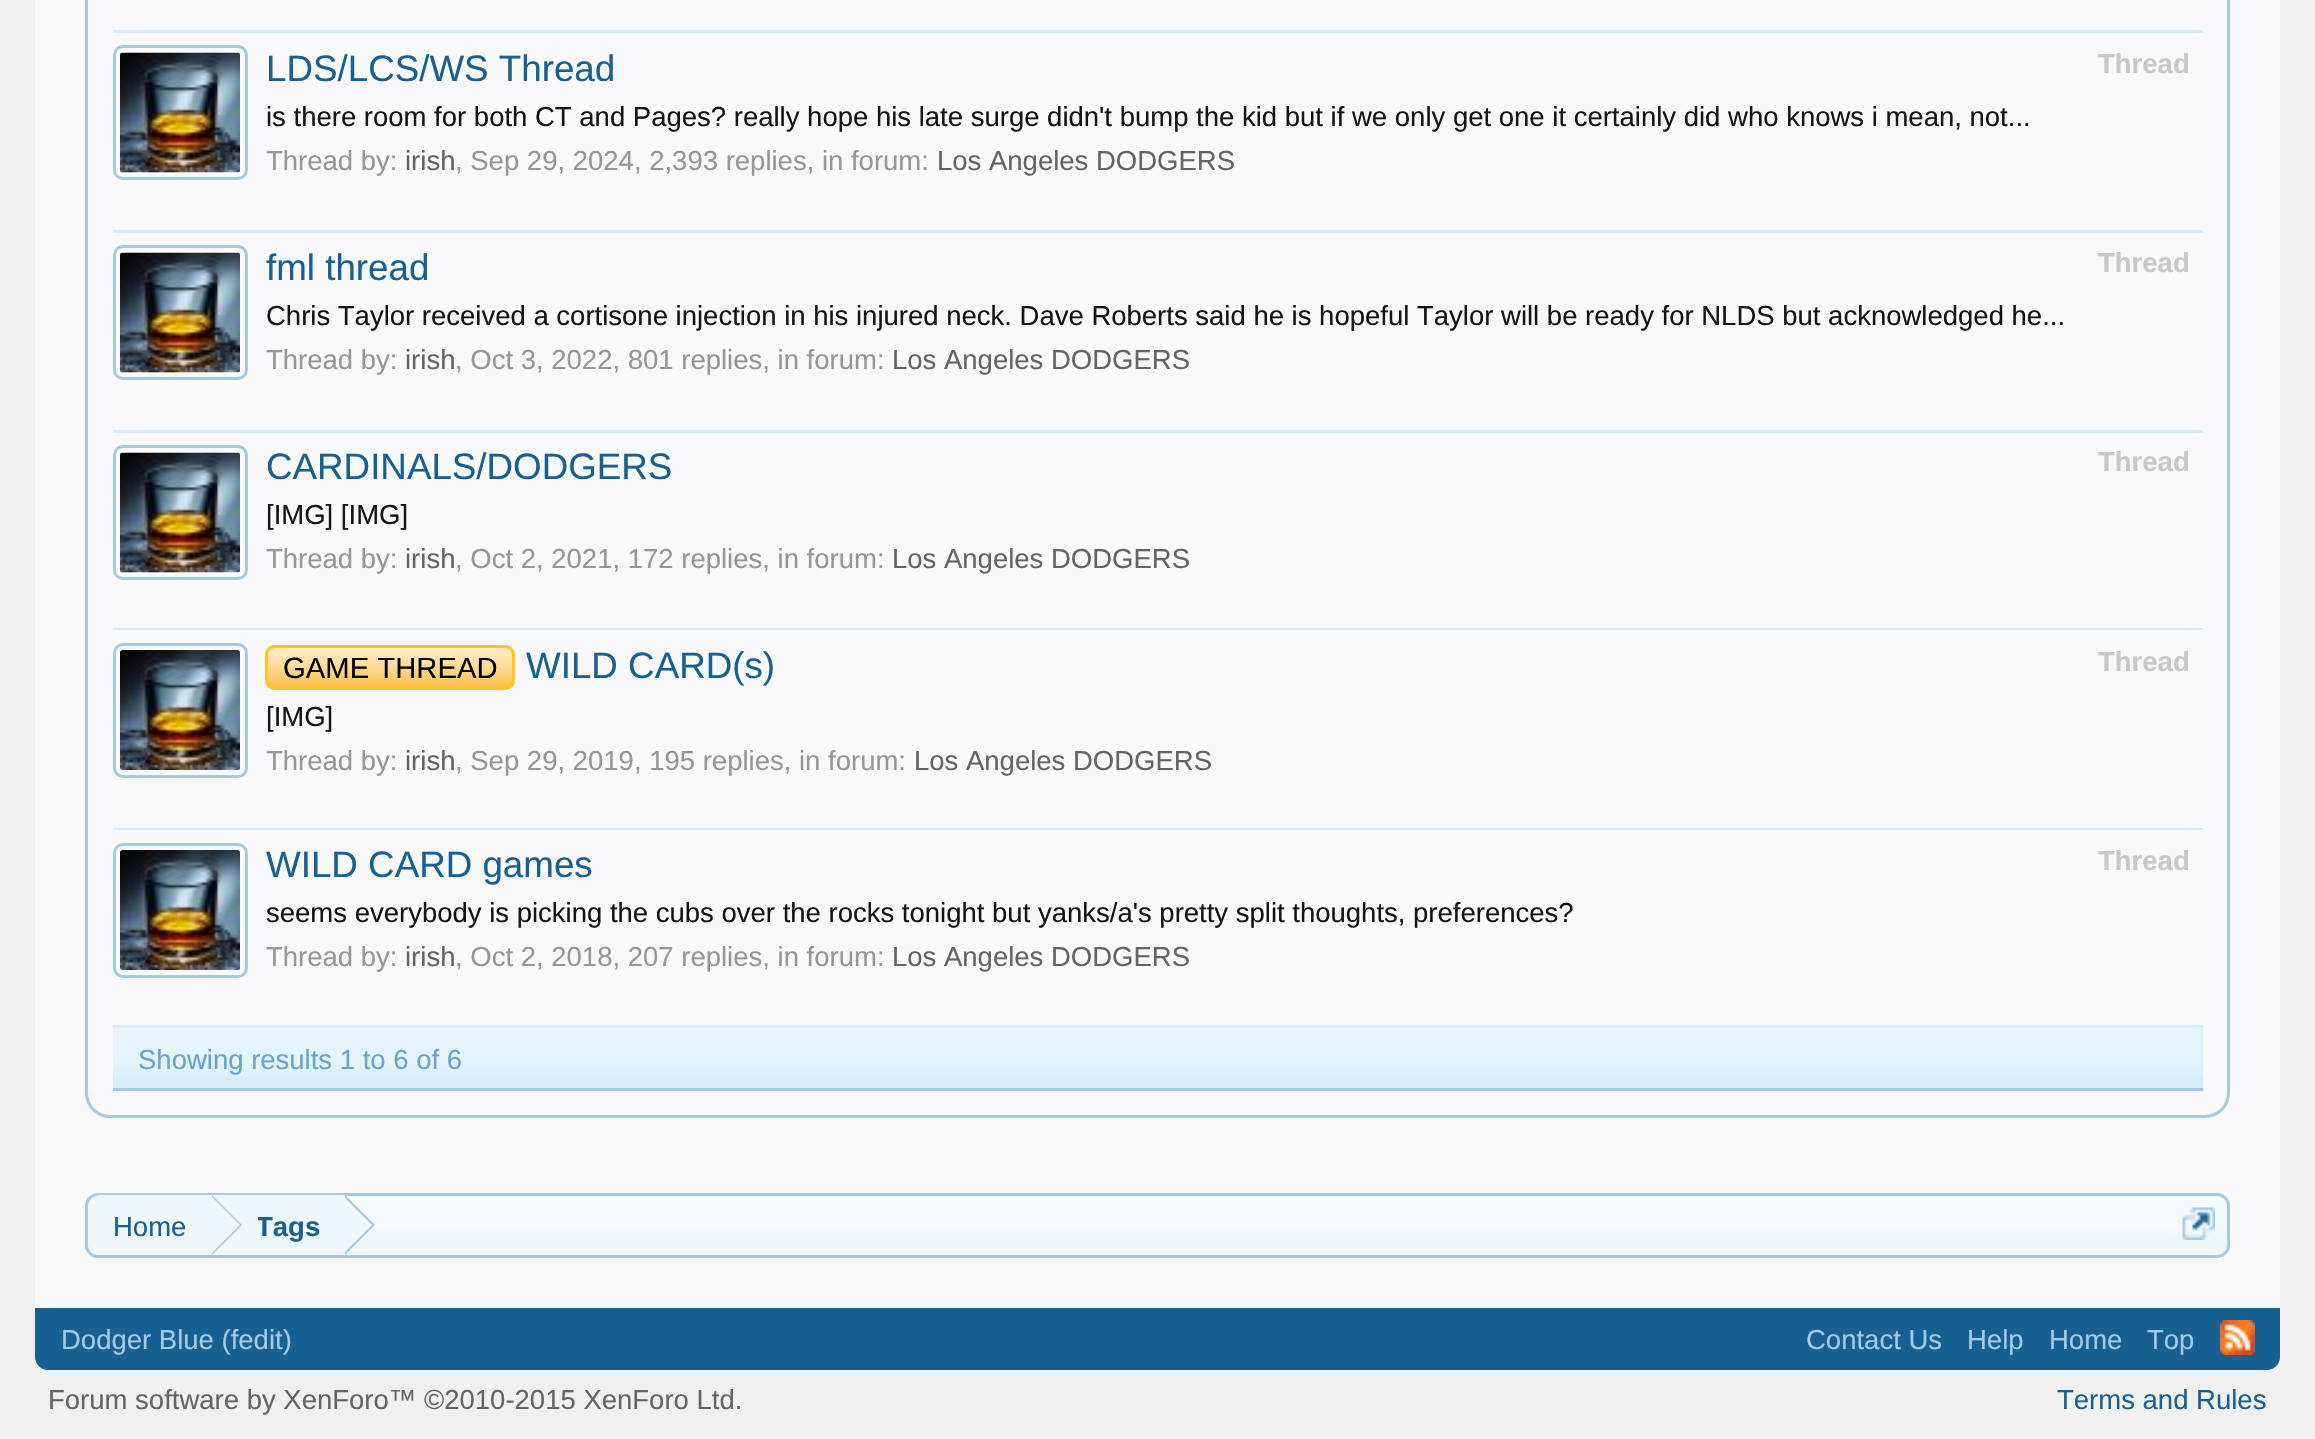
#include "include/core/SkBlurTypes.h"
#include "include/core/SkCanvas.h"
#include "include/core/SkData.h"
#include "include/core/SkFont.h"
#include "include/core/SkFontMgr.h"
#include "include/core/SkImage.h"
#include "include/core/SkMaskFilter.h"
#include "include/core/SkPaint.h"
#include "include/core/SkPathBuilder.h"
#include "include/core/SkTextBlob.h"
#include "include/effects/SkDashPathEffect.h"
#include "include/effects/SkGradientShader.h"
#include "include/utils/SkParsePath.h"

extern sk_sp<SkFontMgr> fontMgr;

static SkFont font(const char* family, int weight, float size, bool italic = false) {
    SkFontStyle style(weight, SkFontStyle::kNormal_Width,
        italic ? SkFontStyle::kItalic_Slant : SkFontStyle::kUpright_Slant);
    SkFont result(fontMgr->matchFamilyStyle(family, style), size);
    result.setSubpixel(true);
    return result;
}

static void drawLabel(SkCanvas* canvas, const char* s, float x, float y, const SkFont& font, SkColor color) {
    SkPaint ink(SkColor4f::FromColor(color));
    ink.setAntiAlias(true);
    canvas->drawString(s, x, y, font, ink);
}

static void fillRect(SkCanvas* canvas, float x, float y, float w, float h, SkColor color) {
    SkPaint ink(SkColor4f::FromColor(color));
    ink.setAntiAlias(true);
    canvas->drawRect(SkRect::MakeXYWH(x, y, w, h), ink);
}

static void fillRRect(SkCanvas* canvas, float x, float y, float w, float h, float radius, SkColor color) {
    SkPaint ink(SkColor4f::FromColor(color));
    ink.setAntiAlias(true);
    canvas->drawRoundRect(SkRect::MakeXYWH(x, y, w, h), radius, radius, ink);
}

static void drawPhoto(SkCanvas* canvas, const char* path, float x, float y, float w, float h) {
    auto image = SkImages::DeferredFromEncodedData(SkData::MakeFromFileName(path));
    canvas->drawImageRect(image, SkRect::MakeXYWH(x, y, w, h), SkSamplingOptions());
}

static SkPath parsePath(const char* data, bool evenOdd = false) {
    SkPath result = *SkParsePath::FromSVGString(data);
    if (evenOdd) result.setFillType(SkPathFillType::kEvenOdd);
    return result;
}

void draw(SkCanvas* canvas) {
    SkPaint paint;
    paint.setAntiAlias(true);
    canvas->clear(0xFFF0F0F0);
    fillRect(canvas, 35, 0, 2245, 1308, 0xFFF9F9FB);
    paint.setStroke(true);
    paint.setStrokeWidth(3);
    paint.setColor(0xFFA5CAE4);
    canvas->drawRoundRect(SkRect::MakeXYWH(86.5f, -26.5f, 2142, 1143), 23.5f, 23.5f, paint);
    fillRect(canvas, 113, 30, 2090, 3, 0xFFD7EDFC);
    fillRect(canvas, 113, 230, 2090, 3, 0xFFD7EDFC);
    canvas->drawRoundRect(SkRect::MakeXYWH(114.5f, 46.5f, 132, 132), 8.5f, 8.5f, paint);
    drawPhoto(canvas, "assets/img1.png", 120, 52, 120, 121);
    SkFont font1 = font("Liberation Sans", 400, 36.75f);
    drawLabel(canvas, "LDS/LCS/WS Thread", 266, 81, font1, 0xFF176093);
    SkFont font2 = font("Liberation Sans", 700, 27.5f);
    drawLabel(canvas, "Thread", 2098, 73, font2, 0xFFC8C8C8);
    SkFont font3 = font("Liberation Sans", 400, 27.5f);
    drawLabel(canvas, "is there room for both CT and Pages? really hope his late surge didn't bump the kid but if we only get one it certainly did who knows i mean, not...", 266, 126, font3, 0xFF141414);
    drawLabel(canvas, "Thread by:", 266, 170, font3, 0xFF969696);
    drawLabel(canvas, "irish", 405, 170, font3, 0xFF646464);
    drawLabel(canvas, ", Sep 29, 2024, 2,393 replies, in forum:", 455, 170, font3, 0xFF969696);
    drawLabel(canvas, "Los Angeles DODGERS", 937, 170, font3, 0xFF646464);
    fillRect(canvas, 113, 430, 2090, 3, 0xFFD7EDFC);
    canvas->drawRoundRect(SkRect::MakeXYWH(114.5f, 246.5f, 132, 132), 8.5f, 8.5f, paint);
    drawPhoto(canvas, "assets/img1.png", 120, 252, 120, 121);
    drawLabel(canvas, "fml thread", 266, 280, font1, 0xFF176093);
    drawLabel(canvas, "Thread", 2098, 272, font2, 0xFFC8C8C8);
    drawLabel(canvas, "Chris Taylor received a cortisone injection in his injured neck. Dave Roberts said he is hopeful Taylor will be ready for NLDS but acknowledged he...", 266, 325, font3, 0xFF141414);
    drawLabel(canvas, "Thread by:", 266, 369, font3, 0xFF969696);
    drawLabel(canvas, "irish", 405, 369, font3, 0xFF646464);
    drawLabel(canvas, ", Oct 3, 2022, 801 replies, in forum:", 455, 369, font3, 0xFF969696);
    drawLabel(canvas, "Los Angeles DODGERS", 892, 369, font3, 0xFF646464);
    fillRect(canvas, 113, 628, 2090, 2, 0xFFD7EDFC);
    canvas->drawRoundRect(SkRect::MakeXYWH(114.5f, 446.5f, 132, 132), 8.5f, 8.5f, paint);
    drawPhoto(canvas, "assets/img1.png", 120, 452, 120, 121);
    drawLabel(canvas, "CARDINALS/DODGERS", 266, 479, font1, 0xFF176093);
    drawLabel(canvas, "Thread", 2098, 471, font2, 0xFFC8C8C8);
    drawLabel(canvas, "[IMG] [IMG]", 266, 524, font3, 0xFF141414);
    drawLabel(canvas, "Thread by:", 266, 568, font3, 0xFF969696);
    drawLabel(canvas, "irish", 405, 568, font3, 0xFF646464);
    drawLabel(canvas, ", Oct 2, 2021, 172 replies, in forum:", 455, 568, font3, 0xFF969696);
    drawLabel(canvas, "Los Angeles DODGERS", 892, 568, font3, 0xFF646464);
    fillRect(canvas, 113, 828, 2090, 2, 0xFFD7EDFC);
    canvas->drawRoundRect(SkRect::MakeXYWH(114.5f, 644.5f, 132, 132), 8.5f, 8.5f, paint);
    drawPhoto(canvas, "assets/img2.png", 120, 650, 120, 120);
    fillRRect(canvas, 265, 645, 250, 45, 10, 0xFFFFA500);
    drawPhoto(canvas, "assets/img3.png", 265, 647, 250, 43);
    paint.setColor(0xFFFFC520);
    canvas->drawRoundRect(SkRect::MakeXYWH(266.5f, 646.5f, 247, 42), 8.5f, 8.5f, paint);
    SkFont font4 = font("Liberation Sans", 400, 29.25f);
    drawLabel(canvas, "GAME THREAD", 283, 678, font4, 0xFF000000);
    drawLabel(canvas, "WILD CARD(s)", 526, 678, font1, 0xFF176093);
    drawLabel(canvas, "Thread", 2098, 671, font2, 0xFFC8C8C8);
    drawLabel(canvas, "[IMG]", 266, 726, font3, 0xFF141414);
    drawLabel(canvas, "Thread by:", 266, 770, font3, 0xFF969696);
    drawLabel(canvas, "irish", 405, 770, font3, 0xFF646464);
    drawLabel(canvas, ", Sep 29, 2019, 195 replies, in forum:", 455, 770, font3, 0xFF969696);
    drawLabel(canvas, "Los Angeles DODGERS", 914, 770, font3, 0xFF646464);
    fillRect(canvas, 113, 1025, 2090, 63, 0xFFD7EDFC);
    paint.setColor(0xFFA5CAE4);
    canvas->drawRoundRect(SkRect::MakeXYWH(114.5f, 844.5f, 132, 132), 8.5f, 8.5f, paint);
    drawPhoto(canvas, "assets/img2.png", 120, 850, 120, 120);
    drawLabel(canvas, "WILD CARD games", 266, 877, font1, 0xFF176093);
    drawLabel(canvas, "Thread", 2098, 870, font2, 0xFFC8C8C8);
    drawLabel(canvas, "seems everybody is picking the cubs over the rocks tonight but yanks/a's pretty split thoughts, preferences?", 266, 922, font3, 0xFF141414);
    drawLabel(canvas, "Thread by:", 266, 966, font3, 0xFF969696);
    drawLabel(canvas, "irish", 405, 966, font3, 0xFF646464);
    drawLabel(canvas, ", Oct 2, 2018, 207 replies, in forum:", 455, 966, font3, 0xFF969696);
    drawLabel(canvas, "Los Angeles DODGERS", 892, 966, font3, 0xFF646464);
    drawPhoto(canvas, "assets/img4.png", 113, 1027, 2090, 50);
    fillRect(canvas, 113, 1088, 2090, 3, 0xFFA5CAE4);
    drawLabel(canvas, "Showing results 1 to 6 of 6", 138, 1069, font3, 0xFF65A5D1);
    fillRRect(canvas, 85, 1193, 2145, 65, 13, 0xFFF0F7FC);
    drawPhoto(canvas, "assets/img5.png", 85, 1195, 2145, 39);
    canvas->drawRoundRect(SkRect::MakeXYWH(86.5f, 1194.5f, 2142, 62), 11.5f, 11.5f, paint);
    canvas->save();
    canvas->clipPath(parsePath("M98 1195H2218C2223.5 1195 2228 1199.5 2228 1205V1245C2228 1250.5 2223.5 1255 2218 1255H98C92.5 1255 88 1250.5 88 1245V1205C88 1199.5 92.5 1195 98 1195Z"), true);
    paint.setStroke(false);
    paint.setColor(0xFFF0F7FC);
    canvas->drawPath(parsePath("M101 1195H213V1258H101C94 1258 88 1252 88 1245V1208C88 1201 94 1195 101 1195Z"), paint);
    canvas->restore();
    drawLabel(canvas, "Home", 113, 1236, font3, 0xFF176093);
    fillRect(canvas, 213, 1195, 132, 39, 0xFFF0F7FC);
    paint.setColor(0xFFA5CAE4);
    canvas->drawPath(parsePath("M212 1255V1195L242 1225Z"), paint);
    paint.setColor(0xFFF0F7FC);
    canvas->drawPath(parsePath("M210 1255V1195L240 1225Z"), paint);
    canvas->save();
    canvas->clipRect(SkRect::MakeXYWH(258, 1195, 62, 60));
    drawLabel(canvas, "Tags", 256, 1236, font2, 0xFF176093);
    canvas->restore();
    paint.setColor(0xFFA5CAE4);
    canvas->drawPath(parsePath("M345 1255V1195L375 1225Z"), paint);
    paint.setColor(0xFFF0F7FC);
    canvas->drawPath(parsePath("M342 1255V1195L372 1225Z"), paint);
    drawPhoto(canvas, "assets/img6.png", 2182, 1207, 33, 33);
    paint.setColor(0xFF176093);
    canvas->drawPath(parsePath("M35 1308H2280V1357C2280 1364 2274 1370 2267 1370H48C41 1370 35 1364 35 1357Z"), paint);
    drawLabel(canvas, "Dodger Blue (fedit)", 61, 1349, font3, 0xFFA5CAE4);
    drawLabel(canvas, "Contact Us", 1806, 1349, font3, 0xFFA5CAE4);
    drawLabel(canvas, "Help", 1967, 1349, font3, 0xFFA5CAE4);
    drawLabel(canvas, "Home", 2049, 1349, font3, 0xFFA5CAE4);
    drawLabel(canvas, "Top", 2147, 1349, font3, 0xFFA5CAE4);
    drawPhoto(canvas, "assets/img7.png", 2220, 1320, 35, 35);
    drawLabel(canvas, "Forum software by XenForo™ ©2010-2015 XenForo Ltd.", 48, 1409, font3, 0xFF646464);
    drawLabel(canvas, "Terms and Rules", 2057, 1409, font3, 0xFF176093);
}
